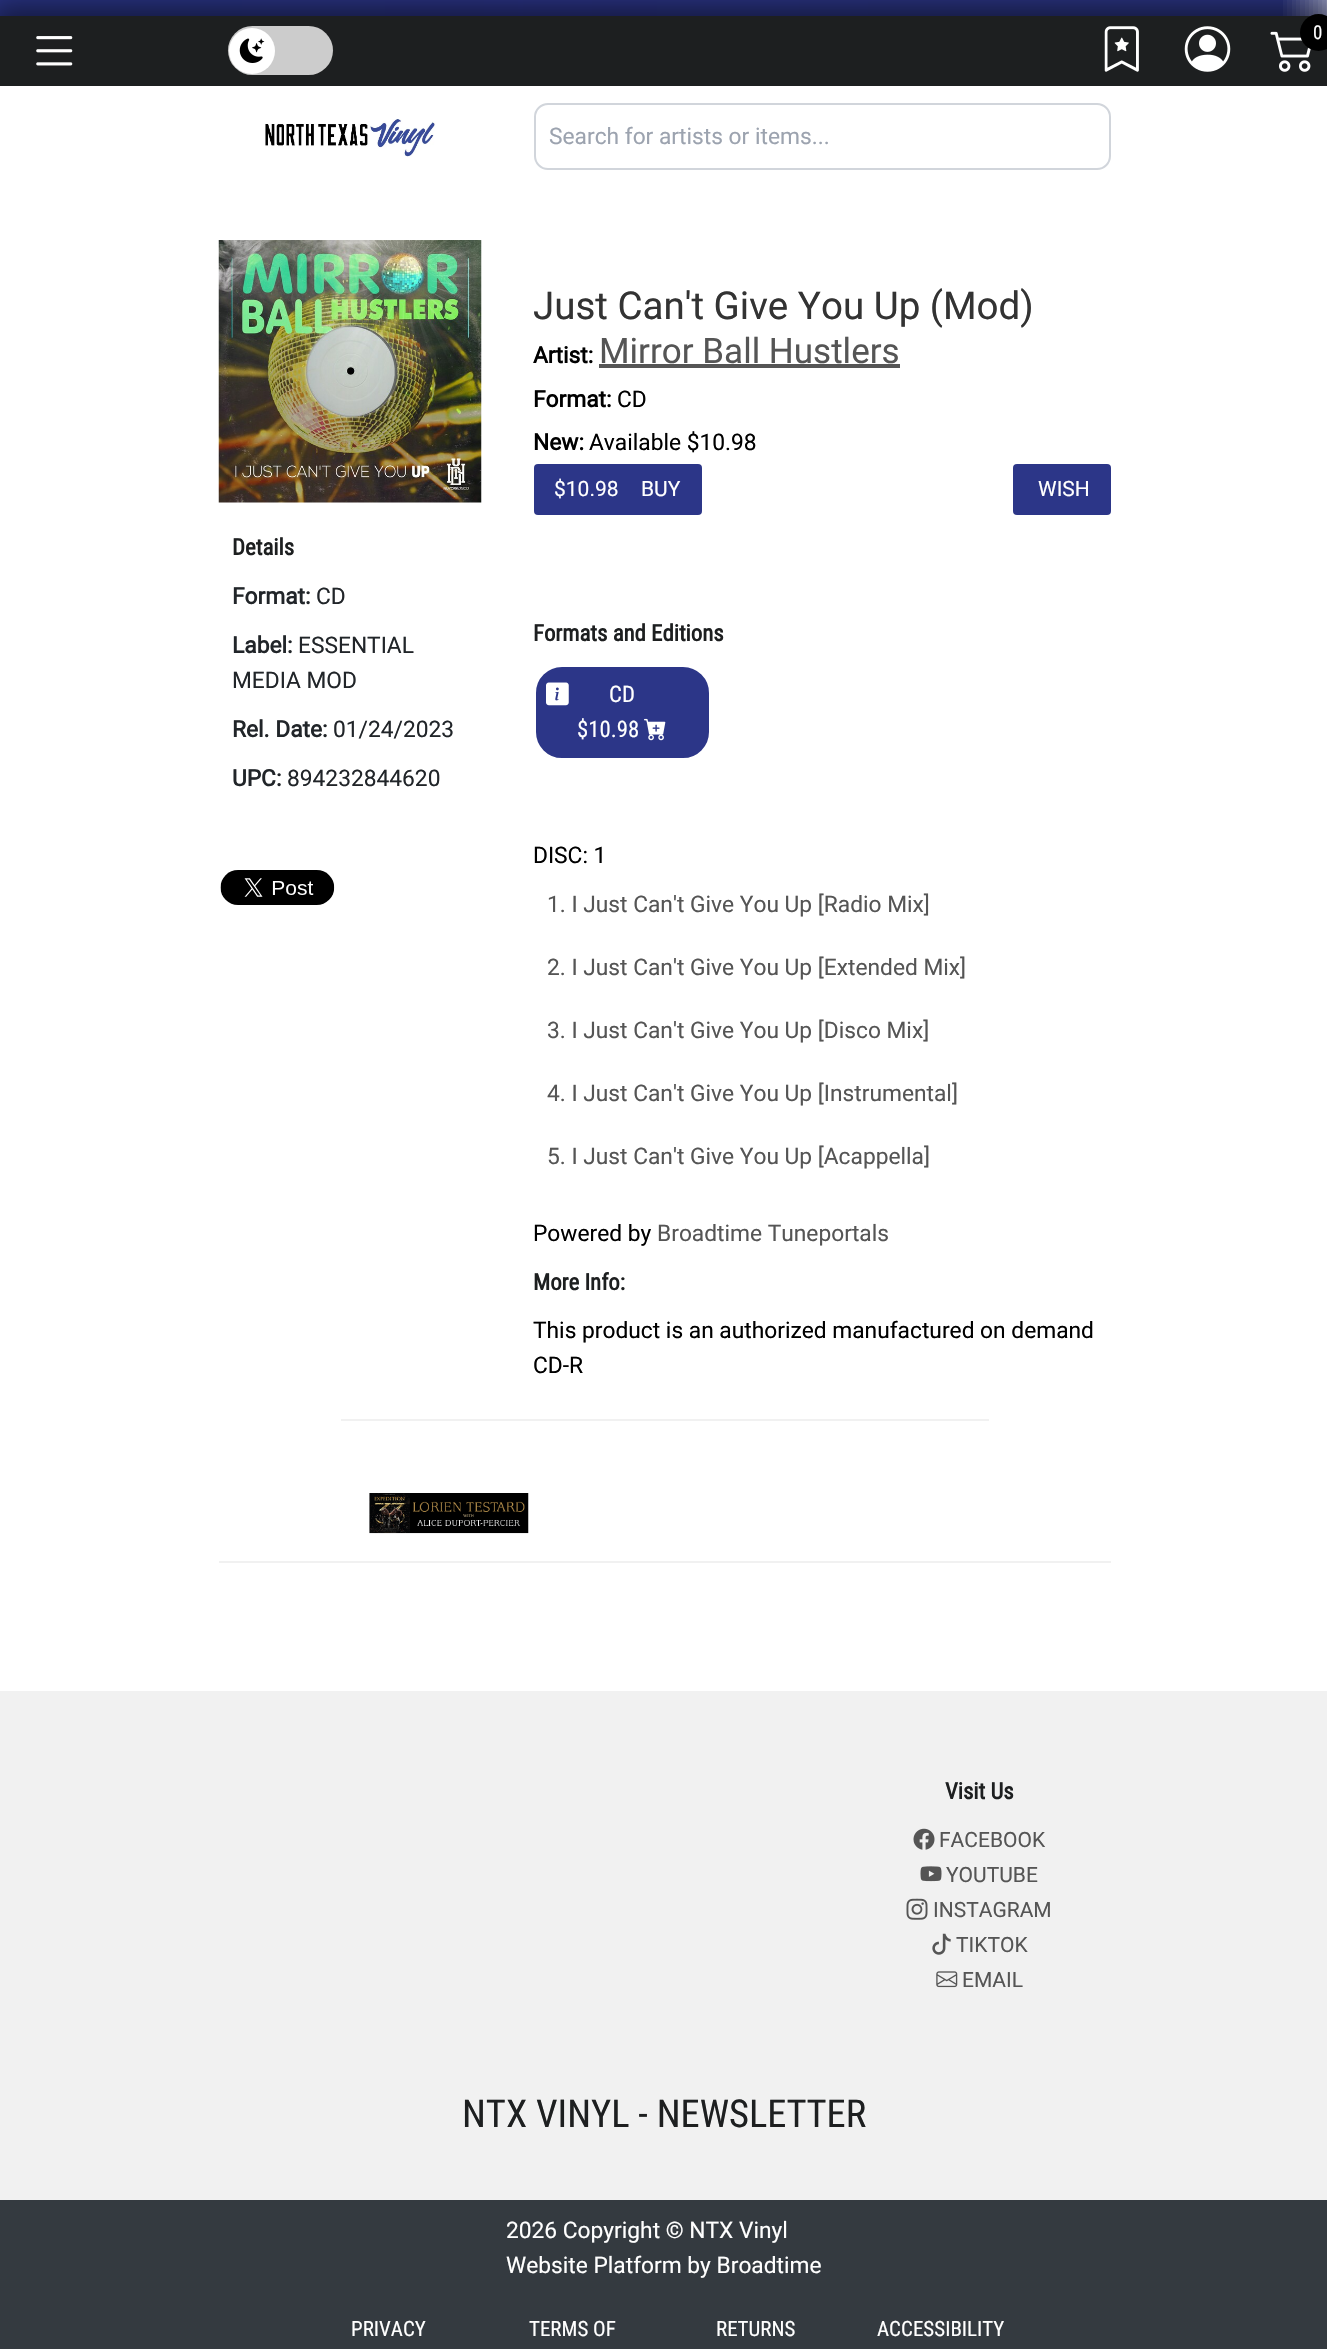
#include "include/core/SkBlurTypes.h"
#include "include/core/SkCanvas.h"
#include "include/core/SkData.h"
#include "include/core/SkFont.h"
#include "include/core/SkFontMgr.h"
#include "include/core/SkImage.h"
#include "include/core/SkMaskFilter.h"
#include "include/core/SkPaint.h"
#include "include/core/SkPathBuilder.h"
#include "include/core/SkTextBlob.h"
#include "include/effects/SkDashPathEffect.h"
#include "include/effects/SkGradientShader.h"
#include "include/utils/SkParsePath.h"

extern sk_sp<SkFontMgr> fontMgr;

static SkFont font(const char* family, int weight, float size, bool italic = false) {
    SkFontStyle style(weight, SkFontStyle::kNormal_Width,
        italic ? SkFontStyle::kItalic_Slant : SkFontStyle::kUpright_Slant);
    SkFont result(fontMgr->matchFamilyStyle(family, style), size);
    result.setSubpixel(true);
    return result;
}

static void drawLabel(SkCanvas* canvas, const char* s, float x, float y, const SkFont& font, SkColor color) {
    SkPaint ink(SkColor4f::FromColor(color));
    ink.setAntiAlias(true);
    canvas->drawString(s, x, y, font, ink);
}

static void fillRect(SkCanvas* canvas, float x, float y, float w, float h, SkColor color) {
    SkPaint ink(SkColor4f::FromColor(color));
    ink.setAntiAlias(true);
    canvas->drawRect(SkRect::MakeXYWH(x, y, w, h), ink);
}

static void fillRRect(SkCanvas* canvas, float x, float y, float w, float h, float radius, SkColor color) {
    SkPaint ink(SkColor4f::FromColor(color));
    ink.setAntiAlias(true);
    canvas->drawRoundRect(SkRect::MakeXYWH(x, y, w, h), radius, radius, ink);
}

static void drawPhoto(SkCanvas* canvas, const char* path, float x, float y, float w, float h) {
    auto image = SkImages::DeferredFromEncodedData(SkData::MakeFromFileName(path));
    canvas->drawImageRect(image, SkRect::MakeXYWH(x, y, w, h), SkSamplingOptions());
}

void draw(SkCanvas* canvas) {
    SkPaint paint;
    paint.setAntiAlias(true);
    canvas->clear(0xFFFFFFFF);
    drawPhoto(canvas, "assets/img1.png", 0, 0, 1327, 16);
    paint.setColor(0x8F000000);
    paint.setMaskFilter(SkMaskFilter::MakeBlur(kNormal_SkBlurStyle, 15));
    canvas->drawRect(SkRect::MakeXYWH(-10, 5, 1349, 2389), paint);
    paint.setMaskFilter(nullptr);
    fillRect(canvas, 0, 86, 1327, 1605, 0xFFFFFFFF);
    fillRect(canvas, 0, 16, 1327, 70, 0xFF1D1F20);
    drawPhoto(canvas, "assets/img2.png", 36, 36, 37, 30);
    fillRRect(canvas, 228, 26, 105, 49, 24.5f, 0xFFCCCCCC);
    paint.setColor(0xFFFFFFFF);
    canvas->drawCircle(252, 51, 23, paint);
    drawPhoto(canvas, "assets/img3.png", 239, 38, 26, 25);
    drawPhoto(canvas, "assets/img4.png", 1104, 26, 35, 46);
    drawPhoto(canvas, "assets/img5.png", 1184, 26, 47, 46);
    drawPhoto(canvas, "assets/img6.png", 1270, 31, 41, 41);
    paint.setColor(0xFF000000);
    canvas->drawCircle(1318.5f, 32.5f, 18.5f, paint);
    SkFont font1 = font("Roboto Condensed", 400, 19);
    drawLabel(canvas, "0", 1313, 39, font1, 0xFFFFFFFF);
    drawPhoto(canvas, "assets/img7.png", 265, 119, 171, 38);
    paint.setStroke(true);
    paint.setStrokeWidth(2);
    paint.setColor(0xFFD1D5DB);
    canvas->drawRoundRect(SkRect::MakeXYWH(535, 104, 575, 65), 13, 13, paint);
    SkFont font2 = font("Roboto", 400, 22.75f);
    drawLabel(canvas, "Search for artists or items...", 549, 144, font2, 0xFF9CA3AF);
    drawPhoto(canvas, "assets/img8.png", 218, 240, 264, 263);
    SkFont font3 = font("Roboto Condensed", 700, 22.75f);
    drawLabel(canvas, "Details", 232, 555, font3, 0xFF1D1F20);
    SkFont font4 = font("Roboto", 700, 22.75f);
    drawLabel(canvas, "Format:", 232, 604, font4, 0xFF212529);
    drawLabel(canvas, "CD", 316, 604, font2, 0xFF212529);
    drawLabel(canvas, "Label:", 232, 653, font4, 0xFF212529);
    drawLabel(canvas, "ESSENTIAL", 298, 653, font2, 0xFF212529);
    drawLabel(canvas, "MEDIA MOD", 232, 688, font2, 0xFF212529);
    drawLabel(canvas, "Rel. Date:", 232, 737, font4, 0xFF212529);
    drawLabel(canvas, "01/24/2023", 333, 737, font2, 0xFF212529);
    drawLabel(canvas, "UPC:", 232, 786, font4, 0xFF212529);
    drawLabel(canvas, "894232844620", 287, 786, font2, 0xFF212529);
    drawPhoto(canvas, "assets/img9.png", 220, 870, 115, 35);
    SkFont font5 = font("Roboto", 400, 38.5f);
    drawLabel(canvas, "Just Can't Give You Up (Mod)", 533, 319, font5, 0xFF333333);
    drawLabel(canvas, "Artist:", 533, 363, font4, 0xFF000000);
    fillRect(canvas, 599, 364, 301, 4, 0xFF555555);
    SkFont font6 = font("Roboto", 400, 35);
    drawLabel(canvas, "Mirror Ball Hustlers", 599, 363, font6, 0xFF555555);
    drawLabel(canvas, "Format:", 533, 407, font4, 0xFF000000);
    drawLabel(canvas, "CD", 617, 407, font2, 0xFF000000);
    drawLabel(canvas, "New:", 533, 450, font4, 0xFF000000);
    drawLabel(canvas, "Available $10.98", 589, 450, font2, 0xFF000000);
    fillRRect(canvas, 534, 464, 168, 51, 4, 0xFF2C3688);
    SkFont font7 = font("Roboto", 400, 21);
    drawLabel(canvas, "$10.98", 554, 496, font7, 0xFFFFFFFF);
    drawLabel(canvas, "BUY", 641, 496, font7, 0xFFFFFFFF);
    fillRRect(canvas, 1013, 464, 98, 51, 4, 0xFF2C3688);
    drawLabel(canvas, "WISH", 1038, 496, font7, 0xFFFFFFFF);
    drawLabel(canvas, "Formats and Editions", 533, 641, font3, 0xFF1D1F20);
    paint.setStroke(false);
    paint.setColor(0xFF2C3688);
    canvas->drawRoundRect(SkRect::MakeXYWH(537, 668, 171, 89), 25, 25, paint);
    paint.setStroke(true);
    canvas->drawRoundRect(SkRect::MakeXYWH(537, 668, 171, 89), 25, 25, paint);
    drawPhoto(canvas, "assets/img10.png", 546, 682, 23, 24);
    SkFont font8 = font("Roboto Condensed", 400, 22.75f);
    drawLabel(canvas, "CD", 609, 702, font8, 0xFFFFFFFF);
    drawLabel(canvas, "$10.98", 577, 737, font8, 0xFFFFFFFF);
    drawPhoto(canvas, "assets/img11.png", 644, 718, 22, 23);
    drawLabel(canvas, "DISC: 1", 533, 863, font2, 0xFF000000);
    drawLabel(canvas, "1. I Just Can't Give You Up [Radio Mix]", 547, 912, font2, 0xFF555555);
    drawLabel(canvas, "2. I Just Can't Give You Up [Extended Mix]", 547, 975, font2, 0xFF555555);
    drawLabel(canvas, "3. I Just Can't Give You Up [Disco Mix]", 547, 1038, font2, 0xFF555555);
    drawLabel(canvas, "4. I Just Can't Give You Up [Instrumental]", 547, 1101, font2, 0xFF555555);
    drawLabel(canvas, "5. I Just Can't Give You Up [Acappella]", 547, 1164, font2, 0xFF555555);
    drawLabel(canvas, "Powered by", 533, 1241, font2, 0xFF000000);
    drawLabel(canvas, "Broadtime Tuneportals", 657, 1241, font2, 0xFF555555);
    drawLabel(canvas, "More Info:", 533, 1290, font3, 0xFF1D1F20);
    drawLabel(canvas, "This product is an authorized manufactured on demand", 533, 1338, font2, 0xFF000000);
    drawLabel(canvas, "CD-R", 533, 1373, font2, 0xFF000000);
    fillRect(canvas, 341, 1419, 648, 2, 0xFFF1F1F1);
    drawPhoto(canvas, "assets/img12.png", 369, 1493, 160, 41);
    fillRect(canvas, 219, 1561, 892, 2, 0xFFF1F1F1);
    fillRect(canvas, 0, 1691, 1327, 509, 0xFFF1F1F1);
    drawLabel(canvas, "Visit Us", 945, 1799, font3, 0xFF1D1F20);
    drawPhoto(canvas, "assets/img13.png", 913, 1828, 22, 22);
    drawLabel(canvas, "FACEBOOK", 939, 1847, font7, 0xFF555555);
    drawPhoto(canvas, "assets/img14.png", 920, 1866, 22, 16);
    drawLabel(canvas, "YOUTUBE", 946, 1882, font7, 0xFF555555);
    drawPhoto(canvas, "assets/img15.png", 906, 1898, 22, 22);
    drawLabel(canvas, "INSTAGRAM", 933, 1917, font7, 0xFF555555);
    drawPhoto(canvas, "assets/img16.png", 932, 1933, 19, 22);
    drawLabel(canvas, "TIKTOK", 956, 1952, font7, 0xFF555555);
    drawPhoto(canvas, "assets/img17.png", 936, 1971, 22, 17);
    drawLabel(canvas, "EMAIL", 962, 1987, font7, 0xFF555555);
    SkFont font9 = font("Roboto Condensed", 400, 38.5f);
    drawLabel(canvas, "NTX VINYL - NEWSLETTER", 462, 2127, font9, 0xFF1D1F20);
    fillRect(canvas, 0, 2200, 1327, 149, 0xFF343A40);
    drawLabel(canvas, "2026 Copyright © NTX Vinyl", 506, 2238, font2, 0xFFFFFFFF);
    drawLabel(canvas, "Website Platform by Broadtime", 506, 2273, font2, 0xFFFFFFFF);
    SkFont font10 = font("Roboto Condensed", 400, 21);
    drawLabel(canvas, "PRIVACY", 351, 2336, font10, 0xFFFFFFFF);
    drawLabel(canvas, "TERMS OF", 529, 2336, font10, 0xFFFFFFFF);
    drawLabel(canvas, "RETURNS", 716, 2336, font10, 0xFFFFFFFF);
    drawLabel(canvas, "ACCESSIBILITY", 877, 2336, font10, 0xFFFFFFFF);
}
